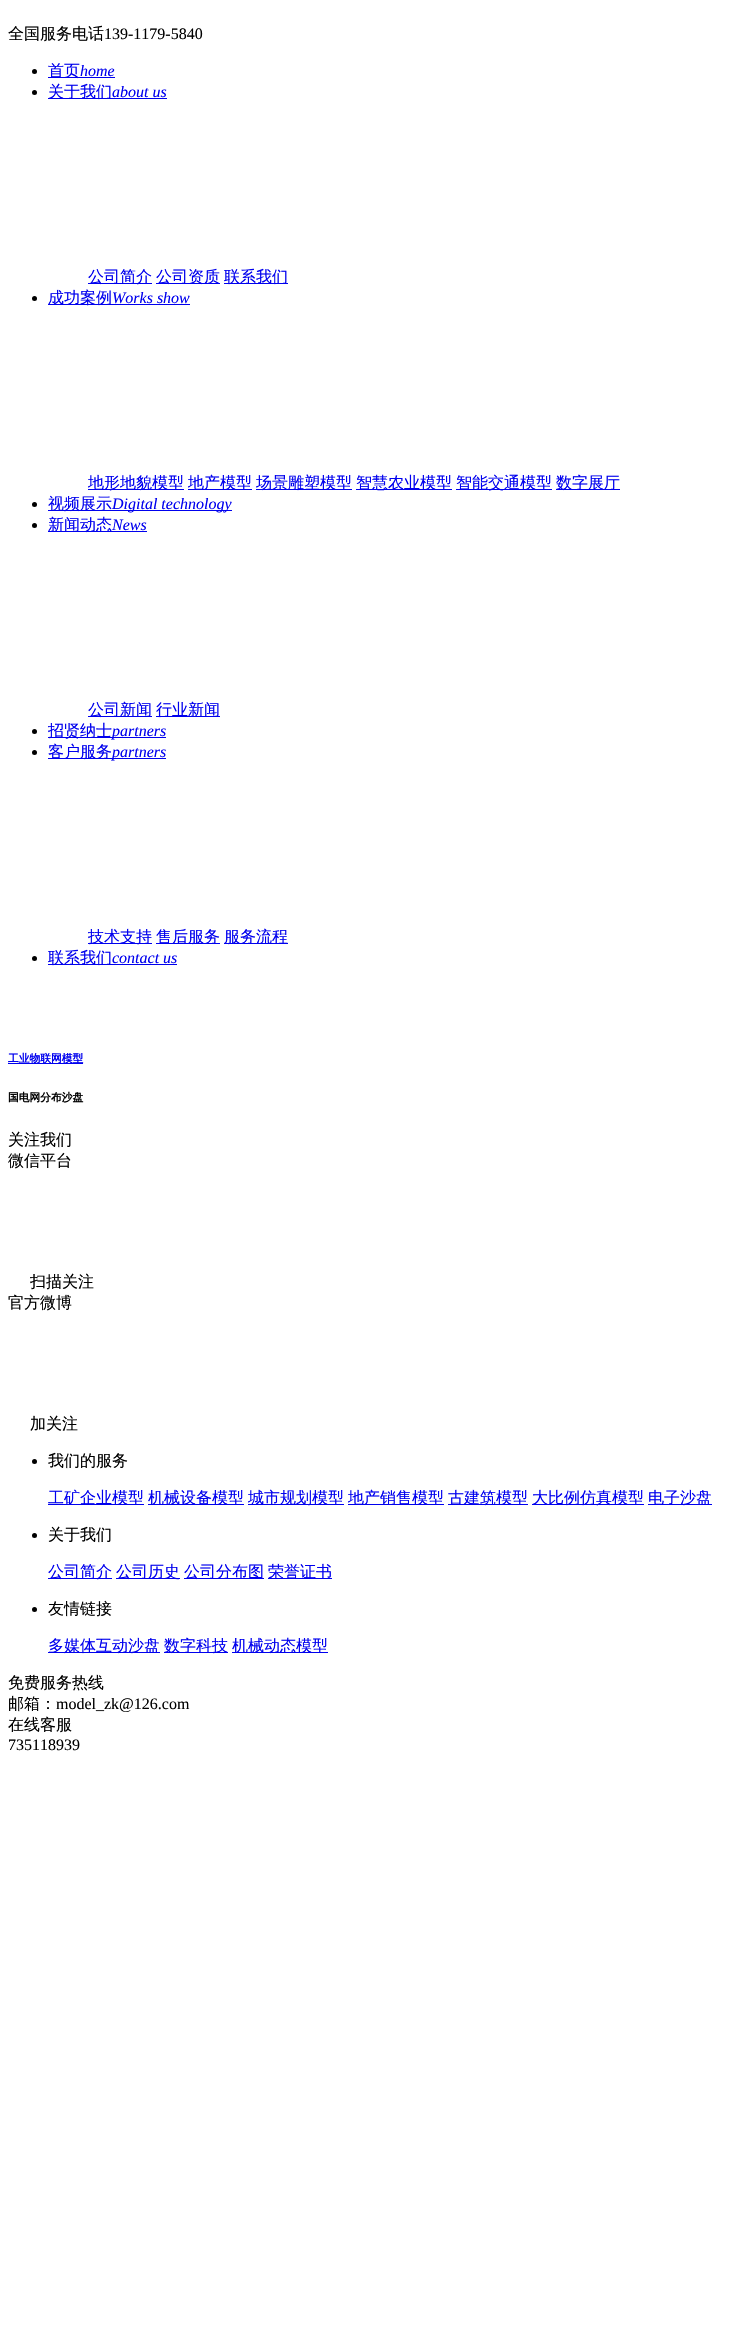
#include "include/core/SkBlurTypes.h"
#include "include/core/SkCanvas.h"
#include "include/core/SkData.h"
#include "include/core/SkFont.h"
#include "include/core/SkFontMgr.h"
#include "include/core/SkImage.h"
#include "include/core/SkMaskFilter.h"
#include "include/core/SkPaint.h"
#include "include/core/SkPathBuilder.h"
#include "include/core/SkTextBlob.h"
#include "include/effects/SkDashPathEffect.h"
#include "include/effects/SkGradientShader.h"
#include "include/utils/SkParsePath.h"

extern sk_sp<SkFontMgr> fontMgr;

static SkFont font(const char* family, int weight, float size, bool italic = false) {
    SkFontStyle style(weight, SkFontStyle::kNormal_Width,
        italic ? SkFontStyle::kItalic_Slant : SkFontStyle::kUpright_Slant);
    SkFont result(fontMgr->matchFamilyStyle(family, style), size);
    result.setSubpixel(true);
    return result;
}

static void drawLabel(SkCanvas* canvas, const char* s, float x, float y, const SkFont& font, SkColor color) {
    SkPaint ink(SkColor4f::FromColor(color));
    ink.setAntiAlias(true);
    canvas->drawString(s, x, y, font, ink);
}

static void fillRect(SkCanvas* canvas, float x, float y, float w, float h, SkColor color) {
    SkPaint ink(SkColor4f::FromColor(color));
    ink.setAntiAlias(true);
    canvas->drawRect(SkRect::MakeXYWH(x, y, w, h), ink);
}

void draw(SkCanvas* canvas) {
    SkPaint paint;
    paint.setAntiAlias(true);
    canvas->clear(0xFFFFFFFF);
    SkFont font1 = font("WenQuanYi Zen Hei", 500, 16);
    drawLabel(canvas, "全国服务电话", 8, 39, font1, 0xFF000000);
    SkFont font2 = font("Liberation Serif", 400, 16);
    drawLabel(canvas, "139-1179-5840", 104, 39, font2, 0xFF000000);
    paint.setColor(0xFF000000);
    canvas->drawCircle(34.5f, 71.5f, 2.5f, paint);
    fillRect(canvas, 48, 77, 67, 1, 0xFF0000EE);
    drawLabel(canvas, "首页", 48, 76, font1, 0xFF0000EE);
    SkFont font3 = font("Liberation Serif", 400, 16, true);
    drawLabel(canvas, "home", 80, 76, font3, 0xFF0000EE);
    canvas->drawCircle(34.5f, 92.5f, 2.5f, paint);
    fillRect(canvas, 48, 98, 119, 1, 0xFF0000EE);
    drawLabel(canvas, "关于我们", 48, 97, font1, 0xFF0000EE);
    drawLabel(canvas, "about us", 112, 97, font3, 0xFF0000EE);
    fillRect(canvas, 88, 283, 64, 1, 0xFF0000EE);
    drawLabel(canvas, "公司简介", 88, 282, font1, 0xFF0000EE);
    fillRect(canvas, 156, 283, 64, 1, 0xFF0000EE);
    drawLabel(canvas, "公司资质", 156, 282, font1, 0xFF0000EE);
    fillRect(canvas, 224, 283, 64, 1, 0xFF0000EE);
    drawLabel(canvas, "联系我们", 224, 282, font1, 0xFF0000EE);
    canvas->drawCircle(34.5f, 298.5f, 2.5f, paint);
    fillRect(canvas, 48, 304, 142, 1, 0xFF0000EE);
    drawLabel(canvas, "成功案例", 48, 303, font1, 0xFF0000EE);
    drawLabel(canvas, "Works show", 112, 303, font3, 0xFF0000EE);
    fillRect(canvas, 88, 489, 96, 1, 0xFF0000EE);
    drawLabel(canvas, "地形地貌模型", 88, 488, font1, 0xFF0000EE);
    fillRect(canvas, 188, 489, 64, 1, 0xFF0000EE);
    drawLabel(canvas, "地产模型", 188, 488, font1, 0xFF0000EE);
    fillRect(canvas, 256, 489, 96, 1, 0xFF0000EE);
    drawLabel(canvas, "场景雕塑模型", 256, 488, font1, 0xFF0000EE);
    fillRect(canvas, 356, 489, 96, 1, 0xFF0000EE);
    drawLabel(canvas, "智慧农业模型", 356, 488, font1, 0xFF0000EE);
    fillRect(canvas, 456, 489, 96, 1, 0xFF0000EE);
    drawLabel(canvas, "智能交通模型", 456, 488, font1, 0xFF0000EE);
    fillRect(canvas, 556, 489, 64, 1, 0xFF0000EE);
    drawLabel(canvas, "数字展厅", 556, 488, font1, 0xFF0000EE);
    canvas->drawCircle(34.5f, 504.5f, 2.5f, paint);
    fillRect(canvas, 48, 510, 184, 1, 0xFF0000EE);
    drawLabel(canvas, "视频展示", 48, 509, font1, 0xFF0000EE);
    drawLabel(canvas, "Digital technology", 112, 509, font3, 0xFF0000EE);
    canvas->drawCircle(34.5f, 525.5f, 2.5f, paint);
    fillRect(canvas, 48, 531, 99, 1, 0xFF0000EE);
    drawLabel(canvas, "新闻动态", 48, 530, font1, 0xFF0000EE);
    drawLabel(canvas, "News", 112, 530, font3, 0xFF0000EE);
    fillRect(canvas, 88, 716, 64, 1, 0xFF0000EE);
    drawLabel(canvas, "公司新闻", 88, 715, font1, 0xFF0000EE);
    fillRect(canvas, 156, 716, 64, 1, 0xFF0000EE);
    drawLabel(canvas, "行业新闻", 156, 715, font1, 0xFF0000EE);
    canvas->drawCircle(34.5f, 731.5f, 2.5f, paint);
    fillRect(canvas, 48, 737, 118, 1, 0xFF0000EE);
    drawLabel(canvas, "招贤纳士", 48, 736, font1, 0xFF0000EE);
    drawLabel(canvas, "partners", 112, 736, font3, 0xFF0000EE);
    canvas->drawCircle(34.5f, 752.5f, 2.5f, paint);
    fillRect(canvas, 48, 758, 118, 1, 0xFF0000EE);
    drawLabel(canvas, "客户服务", 48, 757, font1, 0xFF0000EE);
    drawLabel(canvas, "partners", 112, 757, font3, 0xFF0000EE);
    fillRect(canvas, 88, 943, 64, 1, 0xFF0000EE);
    drawLabel(canvas, "技术支持", 88, 942, font1, 0xFF0000EE);
    fillRect(canvas, 156, 943, 64, 1, 0xFF0000EE);
    drawLabel(canvas, "售后服务", 156, 942, font1, 0xFF0000EE);
    fillRect(canvas, 224, 943, 64, 1, 0xFF0000EE);
    drawLabel(canvas, "服务流程", 224, 942, font1, 0xFF0000EE);
    canvas->drawCircle(34.5f, 958.5f, 2.5f, paint);
    fillRect(canvas, 48, 964, 129, 1, 0xFF0000EE);
    drawLabel(canvas, "联系我们", 48, 963, font1, 0xFF0000EE);
    drawLabel(canvas, "contact us", 112, 963, font3, 0xFF0000EE);
    fillRect(canvas, 8, 1063, 75, 1, 0xFF0000EE);
    SkFont font4 = font("WenQuanYi Zen Hei", 700, 10.75f);
    drawLabel(canvas, "工业物联网模型", 8, 1062, font4, 0xFF0000EE);
    drawLabel(canvas, "国电网分布沙盘", 8, 1101, font4, 0xFF000000);
    drawLabel(canvas, "关注我们", 8, 1145, font1, 0xFF000000);
    drawLabel(canvas, "微信平台", 8, 1166, font1, 0xFF000000);
    drawLabel(canvas, "扫描关注", 30, 1287, font1, 0xFF000000);
    drawLabel(canvas, "官方微博", 8, 1308, font1, 0xFF000000);
    drawLabel(canvas, "加关注", 30, 1429, font1, 0xFF000000);
    canvas->drawCircle(34.5f, 1461.5f, 2.5f, paint);
    drawLabel(canvas, "我们的服务", 48, 1466, font1, 0xFF000000);
    fillRect(canvas, 48, 1504, 96, 1, 0xFF0000EE);
    drawLabel(canvas, "工矿企业模型", 48, 1503, font1, 0xFF0000EE);
    fillRect(canvas, 148, 1504, 96, 1, 0xFF0000EE);
    drawLabel(canvas, "机械设备模型", 148, 1503, font1, 0xFF0000EE);
    fillRect(canvas, 248, 1504, 96, 1, 0xFF0000EE);
    drawLabel(canvas, "城市规划模型", 248, 1503, font1, 0xFF0000EE);
    fillRect(canvas, 348, 1504, 96, 1, 0xFF0000EE);
    drawLabel(canvas, "地产销售模型", 348, 1503, font1, 0xFF0000EE);
    fillRect(canvas, 448, 1504, 80, 1, 0xFF0000EE);
    drawLabel(canvas, "古建筑模型", 448, 1503, font1, 0xFF0000EE);
    fillRect(canvas, 532, 1504, 112, 1, 0xFF0000EE);
    drawLabel(canvas, "大比例仿真模型", 532, 1503, font1, 0xFF0000EE);
    fillRect(canvas, 648, 1504, 64, 1, 0xFF0000EE);
    drawLabel(canvas, "电子沙盘", 648, 1503, font1, 0xFF0000EE);
    canvas->drawCircle(34.5f, 1535.5f, 2.5f, paint);
    drawLabel(canvas, "关于我们", 48, 1540, font1, 0xFF000000);
    fillRect(canvas, 48, 1578, 64, 1, 0xFF0000EE);
    drawLabel(canvas, "公司简介", 48, 1577, font1, 0xFF0000EE);
    fillRect(canvas, 116, 1578, 64, 1, 0xFF0000EE);
    drawLabel(canvas, "公司历史", 116, 1577, font1, 0xFF0000EE);
    fillRect(canvas, 184, 1578, 80, 1, 0xFF0000EE);
    drawLabel(canvas, "公司分布图", 184, 1577, font1, 0xFF0000EE);
    fillRect(canvas, 268, 1578, 64, 1, 0xFF0000EE);
    drawLabel(canvas, "荣誉证书", 268, 1577, font1, 0xFF0000EE);
    canvas->drawCircle(34.5f, 1609.5f, 2.5f, paint);
    drawLabel(canvas, "友情链接", 48, 1614, font1, 0xFF000000);
    fillRect(canvas, 48, 1652, 112, 1, 0xFF0000EE);
    drawLabel(canvas, "多媒体互动沙盘", 48, 1651, font1, 0xFF0000EE);
    fillRect(canvas, 164, 1652, 64, 1, 0xFF0000EE);
    drawLabel(canvas, "数字科技", 164, 1651, font1, 0xFF0000EE);
    fillRect(canvas, 232, 1652, 96, 1, 0xFF0000EE);
    drawLabel(canvas, "机械动态模型", 232, 1651, font1, 0xFF0000EE);
    drawLabel(canvas, "免费服务热线", 8, 1688, font1, 0xFF000000);
    drawLabel(canvas, "邮箱：", 8, 1709, font1, 0xFF000000);
    drawLabel(canvas, "model_zk@126.com", 56, 1709, font2, 0xFF000000);
    drawLabel(canvas, "在线客服", 8, 1730, font1, 0xFF000000);
    drawLabel(canvas, "735118939", 8, 1750, font2, 0xFF000000);
}
